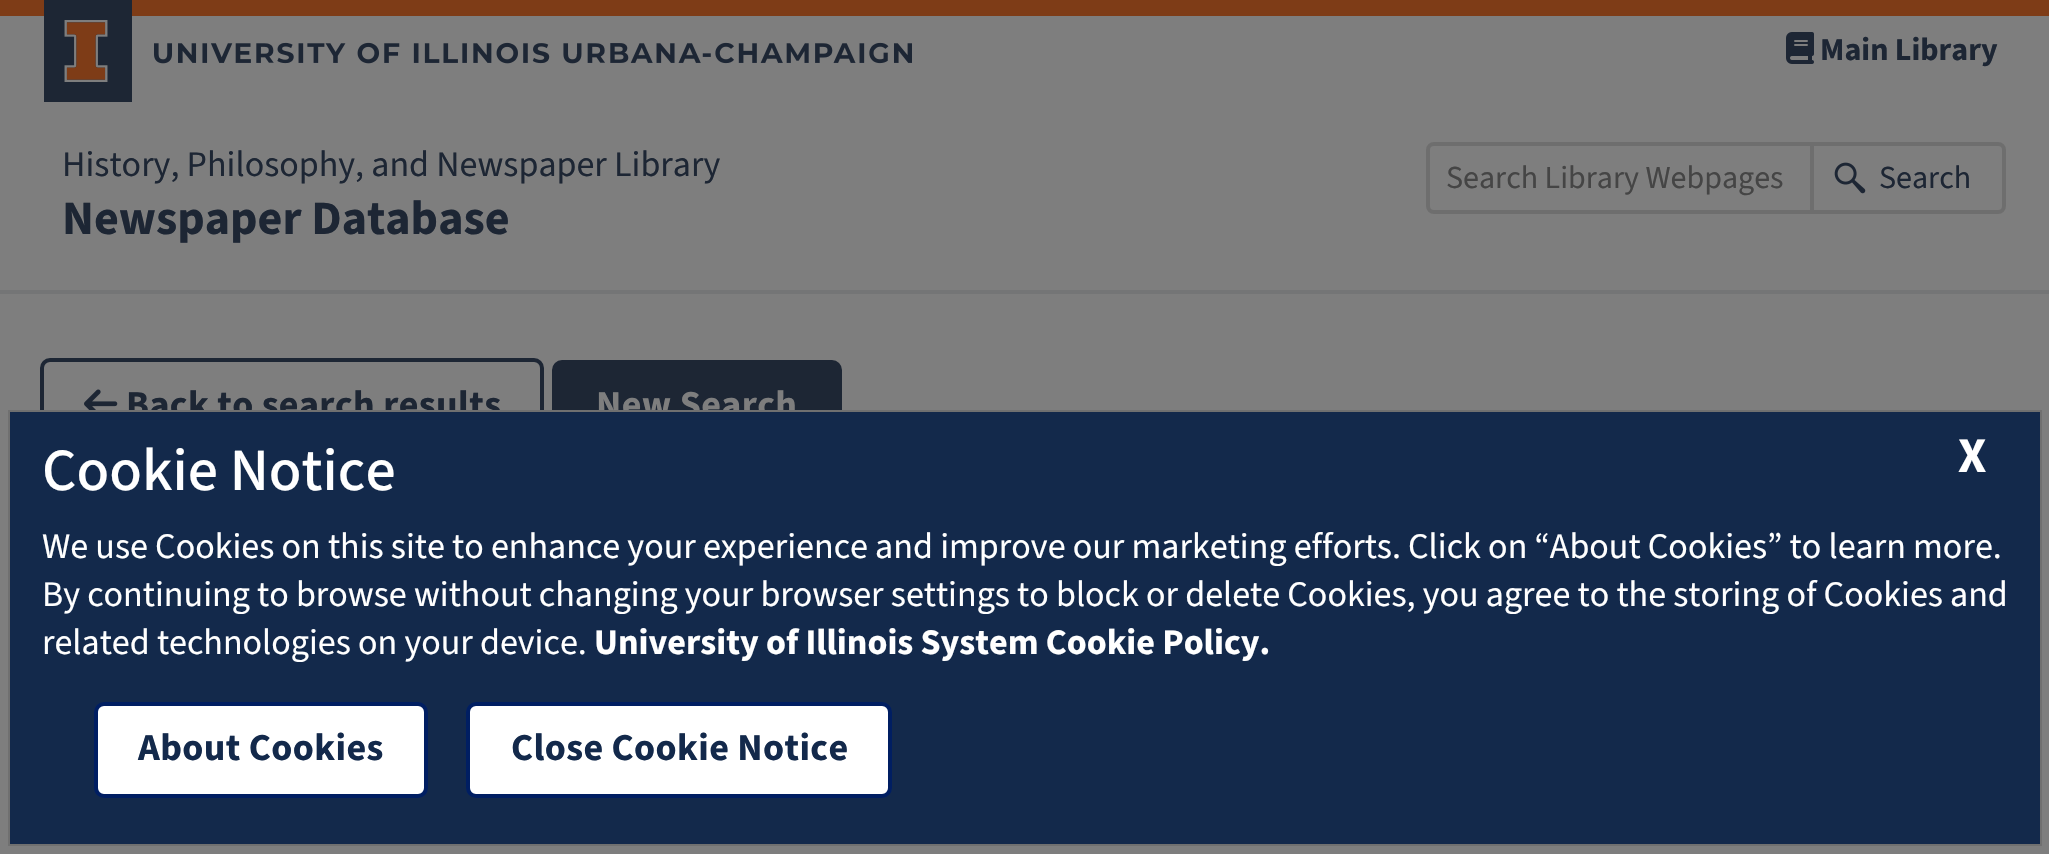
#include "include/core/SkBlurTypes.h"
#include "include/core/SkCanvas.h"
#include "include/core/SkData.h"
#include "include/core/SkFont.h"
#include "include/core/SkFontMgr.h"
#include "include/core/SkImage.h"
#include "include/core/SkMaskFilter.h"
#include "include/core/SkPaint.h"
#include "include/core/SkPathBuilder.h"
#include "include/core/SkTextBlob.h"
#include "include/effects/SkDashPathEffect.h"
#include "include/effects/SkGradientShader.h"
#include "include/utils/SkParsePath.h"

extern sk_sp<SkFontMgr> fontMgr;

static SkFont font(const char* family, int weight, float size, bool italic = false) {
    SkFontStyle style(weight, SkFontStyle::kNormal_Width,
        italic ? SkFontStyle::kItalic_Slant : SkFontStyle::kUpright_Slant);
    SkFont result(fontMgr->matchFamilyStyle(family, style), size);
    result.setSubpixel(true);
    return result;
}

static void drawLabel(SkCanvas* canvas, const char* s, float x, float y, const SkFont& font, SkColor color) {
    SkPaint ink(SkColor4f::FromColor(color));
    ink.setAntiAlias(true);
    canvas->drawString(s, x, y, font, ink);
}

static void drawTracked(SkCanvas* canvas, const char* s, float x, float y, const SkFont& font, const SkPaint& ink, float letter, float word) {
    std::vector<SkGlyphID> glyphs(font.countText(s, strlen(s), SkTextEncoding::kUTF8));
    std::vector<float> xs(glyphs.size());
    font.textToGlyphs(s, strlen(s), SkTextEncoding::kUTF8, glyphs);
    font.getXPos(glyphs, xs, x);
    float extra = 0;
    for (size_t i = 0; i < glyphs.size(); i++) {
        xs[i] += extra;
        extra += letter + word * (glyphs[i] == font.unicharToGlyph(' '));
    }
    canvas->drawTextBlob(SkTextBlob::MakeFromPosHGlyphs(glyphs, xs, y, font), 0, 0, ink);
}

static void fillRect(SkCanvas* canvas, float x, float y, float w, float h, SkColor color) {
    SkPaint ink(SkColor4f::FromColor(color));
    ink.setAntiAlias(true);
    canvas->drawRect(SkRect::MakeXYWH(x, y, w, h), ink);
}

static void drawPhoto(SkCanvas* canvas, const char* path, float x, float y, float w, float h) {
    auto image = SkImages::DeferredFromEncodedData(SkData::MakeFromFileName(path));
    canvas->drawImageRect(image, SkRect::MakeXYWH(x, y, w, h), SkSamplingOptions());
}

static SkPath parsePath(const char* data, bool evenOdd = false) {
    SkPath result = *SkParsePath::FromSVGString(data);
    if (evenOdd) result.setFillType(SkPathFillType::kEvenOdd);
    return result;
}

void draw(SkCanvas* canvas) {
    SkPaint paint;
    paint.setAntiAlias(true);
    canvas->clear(0xFF7E7E7E);
    fillRect(canvas, 0, 0, 2049, 16, 0xFF7E3C17);
    fillRect(canvas, 0, 290, 2049, 4, 0xFF747576);
    fillRect(canvas, 44, 0, 88, 102, 0xFF1D2634);
    drawPhoto(canvas, "assets/img1.png", 64, 20, 44, 62);
    drawPhoto(canvas, "assets/img2.png", 154, 42, 758, 22);
    drawPhoto(canvas, "assets/img3.png", 1786, 32, 28, 32);
    SkFont font1 = font("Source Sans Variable", 700, 32);
    drawLabel(canvas, "Main Library", 1820, 60, font1, 0xFF1D2634);
    SkFont font2 = font("Source Sans Variable", 400, 36);
    drawLabel(canvas, "History, Philosophy, and Newspaper Library", 62, 176, font2, 0xFF1D2634);
    SkFont font3 = font("Source Sans Variable", 700, 48);
    drawLabel(canvas, "Newspaper Database", 62, 234, font3, 0xFF1D2634);
    paint.setStroke(true);
    paint.setStrokeWidth(4);
    paint.setColor(0xFF6E6E6E);
    canvas->drawPath(parsePath("M1434 144H1812V212H1434C1430.5 212 1428 209.5 1428 206V150C1428 146.5 1430.5 144 1434 144Z"), paint);
    SkFont font4 = font("Source Sans Variable", 400, 32);
    drawLabel(canvas, "Search Library Webpages", 1446, 188, font4, 0xFF454545);
    paint.setStroke(false);
    paint.setColor(0xFF7E7E7E);
    canvas->drawPath(parsePath("M1810 142H1998C2002.5 142 2006 145.5 2006 150V206C2006 210.5 2002.5 214 1998 214H1810Z"), paint);
    drawPhoto(canvas, "assets/img4.png", 1834, 162, 32, 32);
    paint.setStroke(true);
    paint.setColor(0xFF6E6E6E);
    canvas->drawPath(parsePath("M1812 144H1998C2001.5 144 2004 146.5 2004 150V206C2004 209.5 2001.5 212 1998 212H1812Z"), paint);
    drawLabel(canvas, "Search", 1879, 188, font4, 0xFF1D2634);
    paint.setColor(0xFF1D2634);
    canvas->drawRoundRect(SkRect::MakeXYWH(42, 360, 500, 94), 8, 8, paint);
    drawPhoto(canvas, "assets/img5.png", 84, 389, 34, 21);
    SkFont font5 = font("Source Sans Variable", 700, 38);
    paint.setStroke(false);
    drawTracked(canvas, "Back to search results", 126, 417, font5, paint, 0.4f, 0);
    canvas->drawRoundRect(SkRect::MakeXYWH(554, 362, 286, 92), 8, 8, paint);
    paint.setStroke(true);
    canvas->drawRoundRect(SkRect::MakeXYWH(554, 362, 286, 92), 8, 8, paint);
    paint.setStroke(false);
    paint.setColor(0xFF7E7E7E);
    drawTracked(canvas, "New Search", 596, 417, font5, paint, 0.4f, 0);
    paint.setColor(0xFF13294B);
    canvas->drawRect(SkRect::MakeXYWH(9, 411, 2032, 434), paint);
    paint.setStroke(true);
    paint.setStrokeWidth(2);
    paint.setColor(0xFF707070);
    canvas->drawRect(SkRect::MakeXYWH(9, 411, 2032, 434), paint);
    SkFont font6 = font("Source Sans Variable", 500, 60);
    drawLabel(canvas, "Cookie Notice", 42, 490, font6, 0xFFFFFFFF);
    SkFont font7 = font("Source Sans Variable", 700, 50);
    drawLabel(canvas, "X", 1958, 472, font7, 0xFFFFFFFF);
    drawLabel(canvas, "We use Cookies on this site to enhance your experience and improve our marketing efforts. Click on “About Cookies” to learn more.", 42, 558, font2, 0xFFFFFFFF);
    drawLabel(canvas, "By continuing to browse without changing your browser settings to block or delete Cookies, you agree to the storing of Cookies and", 42, 606, font2, 0xFFFFFFFF);
    drawLabel(canvas, "related technologies on your device.", 42, 654, font2, 0xFFFFFFFF);
    SkFont font8 = font("Source Sans Variable", 700, 36);
    drawLabel(canvas, "University of Illinois System Cookie Policy.", 594, 654, font8, 0xFFFFFFFF);
    paint.setStroke(false);
    paint.setColor(0xFFFFFFFF);
    canvas->drawRoundRect(SkRect::MakeXYWH(96, 704, 330, 92), 8, 8, paint);
    paint.setStroke(true);
    paint.setStrokeWidth(4);
    paint.setColor(0xFF001E62);
    canvas->drawRoundRect(SkRect::MakeXYWH(96, 704, 330, 92), 8, 8, paint);
    paint.setStroke(false);
    paint.setColor(0xFF13294B);
    drawTracked(canvas, "About Cookies", 138, 760, font5, paint, 0.4f, 0);
    paint.setColor(0xFFFFFFFF);
    canvas->drawRoundRect(SkRect::MakeXYWH(468, 704, 422, 92), 8, 8, paint);
    paint.setStroke(true);
    paint.setColor(0xFF001E62);
    canvas->drawRoundRect(SkRect::MakeXYWH(468, 704, 422, 92), 8, 8, paint);
    paint.setStroke(false);
    paint.setColor(0xFF13294B);
    drawTracked(canvas, "Close Cookie Notice", 511, 760, font5, paint, 0.4f, 0);
}
